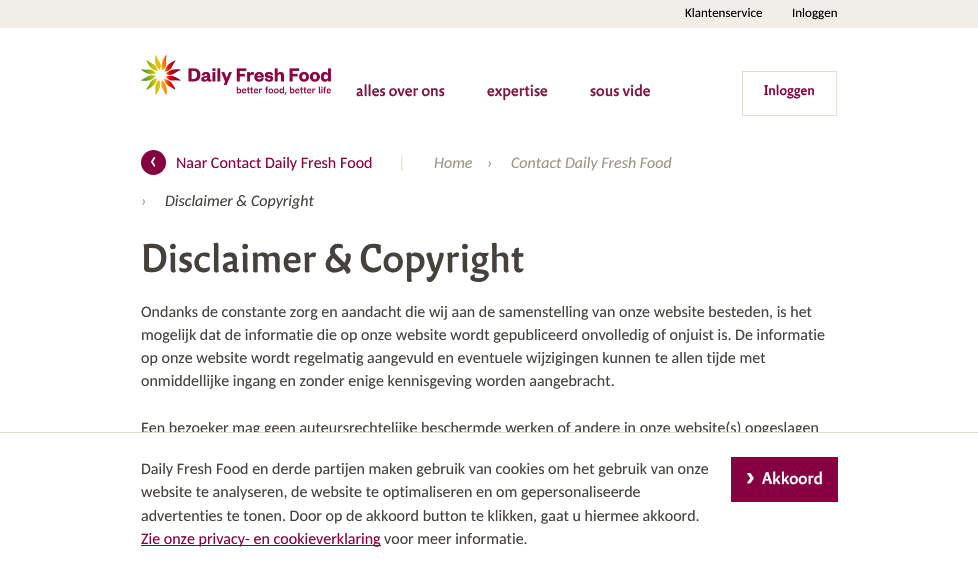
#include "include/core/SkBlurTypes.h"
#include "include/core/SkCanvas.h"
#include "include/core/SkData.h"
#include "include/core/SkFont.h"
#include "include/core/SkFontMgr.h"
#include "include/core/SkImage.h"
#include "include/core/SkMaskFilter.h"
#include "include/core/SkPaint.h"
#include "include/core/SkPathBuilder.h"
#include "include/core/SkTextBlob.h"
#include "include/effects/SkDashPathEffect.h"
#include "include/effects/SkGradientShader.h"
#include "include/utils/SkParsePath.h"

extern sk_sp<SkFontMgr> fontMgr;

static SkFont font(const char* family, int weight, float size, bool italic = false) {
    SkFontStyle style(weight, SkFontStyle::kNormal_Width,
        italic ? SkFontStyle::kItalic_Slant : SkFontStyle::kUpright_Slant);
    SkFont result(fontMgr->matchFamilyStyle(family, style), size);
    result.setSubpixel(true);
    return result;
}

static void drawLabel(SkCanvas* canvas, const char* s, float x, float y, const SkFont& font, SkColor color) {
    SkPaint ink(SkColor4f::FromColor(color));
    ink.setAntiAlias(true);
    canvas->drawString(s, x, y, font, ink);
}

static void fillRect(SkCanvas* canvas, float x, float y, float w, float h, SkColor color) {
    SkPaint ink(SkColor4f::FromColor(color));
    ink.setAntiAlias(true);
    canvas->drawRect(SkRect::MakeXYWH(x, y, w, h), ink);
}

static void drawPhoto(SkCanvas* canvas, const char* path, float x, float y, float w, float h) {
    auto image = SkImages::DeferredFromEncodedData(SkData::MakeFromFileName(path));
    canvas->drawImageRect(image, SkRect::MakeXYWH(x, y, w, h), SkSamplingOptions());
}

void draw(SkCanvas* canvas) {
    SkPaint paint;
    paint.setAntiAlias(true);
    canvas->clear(0xFFFFFFFF);
    fillRect(canvas, 0, 0, 978, 28, 0xFFF1EEE9);
    SkFont font1 = font("Carlito", 400, 13);
    drawLabel(canvas, "Klantenservice", 685, 17, font1, 0xFF000000);
    drawLabel(canvas, "Inloggen", 792, 17, font1, 0xFF000000);
    drawPhoto(canvas, "assets/img1.png", 141, 55, 190, 40);
    SkFont font2 = font("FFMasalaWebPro", 400, 16);
    drawLabel(canvas, "alles over ons", 356, 96, font2, 0xFF7C183E);
    drawLabel(canvas, "expertise", 487, 96, font2, 0xFF7C183E);
    drawLabel(canvas, "sous vide", 590, 96, font2, 0xFF7C183E);
    paint.setStroke(true);
    paint.setStrokeWidth(1);
    paint.setColor(0xFFE3DDD4);
    canvas->drawRect(SkRect::MakeXYWH(742.5f, 71.5f, 94, 44), paint);
    SkFont font3 = font("FFMasalaWebPro", 400, 14);
    drawLabel(canvas, "Inloggen", 764, 95, font3, 0xFF840040);
    paint.setStroke(false);
    paint.setColor(0xFF840040);
    canvas->drawCircle(153.5f, 162.5f, 12.5f, paint);
    SkFont font4 = font("Carlito", 400, 25);
    drawLabel(canvas, "‹", 149, 168, font4, 0xFFFFFFFF);
    SkFont font5 = font("Carlito", 400, 16);
    drawLabel(canvas, "Naar Contact Daily Fresh Food", 176, 168, font5, 0xFF840040);
    drawLabel(canvas, "|", 398, 168, font5, 0xFFE3DDD4);
    SkFont font6 = font("Carlito", 400, 16, true);
    drawLabel(canvas, "Home", 434, 168, font6, 0xFFA19483);
    drawLabel(canvas, "›", 487, 168, font6, 0xFFA19483);
    drawLabel(canvas, "Contact Daily Fresh Food", 511, 168, font6, 0xFFA19483);
    drawLabel(canvas, "›", 141, 206, font6, 0xFFA19483);
    drawLabel(canvas, "Disclaimer & Copyright", 165, 206, font6, 0xFF45423D);
    SkFont font7 = font("FFMasalaWebPro", 400, 40);
    drawLabel(canvas, "Disclaimer & Copyright", 141, 272, font7, 0xFF45423D);
    drawLabel(canvas, "Ondanks de constante zorg en aandacht die wij aan de samenstelling van onze website besteden, is het", 141, 317, font5, 0xFF45423D);
    drawLabel(canvas, "mogelijk dat de informatie die op onze website wordt gepubliceerd onvolledig of onjuist is. De informatie", 141, 340, font5, 0xFF45423D);
    drawLabel(canvas, "op onze website wordt regelmatig aangevuld en eventuele wijzigingen kunnen te allen tijde met", 141, 363, font5, 0xFF45423D);
    drawLabel(canvas, "onmiddellijke ingang en zonder enige kennisgeving worden aangebracht.", 141, 386, font5, 0xFF45423D);
    drawLabel(canvas, "Een bezoeker mag geen auteursrechtelijke beschermde werken of andere in onze website(s) opgeslagen", 141, 433, font5, 0xFF45423D);
    fillRect(canvas, 152, 433, 656, 3, 0xFFFFFFFF);
    fillRect(canvas, 0, 432, 978, 1, 0xFFE3DDD4);
    drawLabel(canvas, "Daily Fresh Food en derde partijen maken gebruik van cookies om het gebruik van onze", 141, 474, font5, 0xFF45423D);
    drawLabel(canvas, "website te analyseren, de website te optimaliseren en om gepersonaliseerde", 141, 497, font5, 0xFF45423D);
    drawLabel(canvas, "advertenties te tonen. Door op de akkoord button te klikken, gaat u hiermee akkoord.", 141, 521, font5, 0xFF45423D);
    fillRect(canvas, 141, 545, 240, 1, 0xFF840040);
    drawLabel(canvas, "Zie onze privacy- en cookieverklaring", 141, 544, font5, 0xFF840040);
    drawLabel(canvas, "voor meer informatie.", 384, 544, font5, 0xFF45423D);
    fillRect(canvas, 731, 457, 107, 45, 0xFF840040);
    SkFont font8 = font("Liberation Sans", 700, 26);
    drawLabel(canvas, "›", 746, 485, font8, 0xFFFFFFFF);
    SkFont font9 = font("FFMasalaWebPro", 400, 17);
    drawLabel(canvas, "Akkoord", 762, 484, font9, 0xFFFFFFFF);
}
